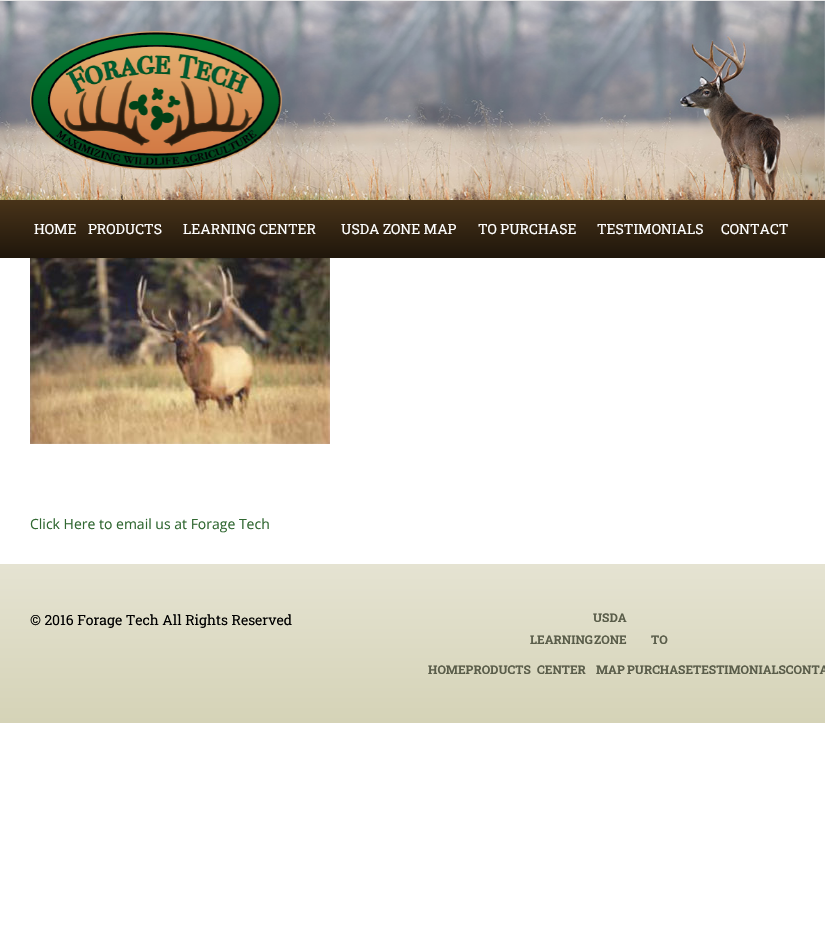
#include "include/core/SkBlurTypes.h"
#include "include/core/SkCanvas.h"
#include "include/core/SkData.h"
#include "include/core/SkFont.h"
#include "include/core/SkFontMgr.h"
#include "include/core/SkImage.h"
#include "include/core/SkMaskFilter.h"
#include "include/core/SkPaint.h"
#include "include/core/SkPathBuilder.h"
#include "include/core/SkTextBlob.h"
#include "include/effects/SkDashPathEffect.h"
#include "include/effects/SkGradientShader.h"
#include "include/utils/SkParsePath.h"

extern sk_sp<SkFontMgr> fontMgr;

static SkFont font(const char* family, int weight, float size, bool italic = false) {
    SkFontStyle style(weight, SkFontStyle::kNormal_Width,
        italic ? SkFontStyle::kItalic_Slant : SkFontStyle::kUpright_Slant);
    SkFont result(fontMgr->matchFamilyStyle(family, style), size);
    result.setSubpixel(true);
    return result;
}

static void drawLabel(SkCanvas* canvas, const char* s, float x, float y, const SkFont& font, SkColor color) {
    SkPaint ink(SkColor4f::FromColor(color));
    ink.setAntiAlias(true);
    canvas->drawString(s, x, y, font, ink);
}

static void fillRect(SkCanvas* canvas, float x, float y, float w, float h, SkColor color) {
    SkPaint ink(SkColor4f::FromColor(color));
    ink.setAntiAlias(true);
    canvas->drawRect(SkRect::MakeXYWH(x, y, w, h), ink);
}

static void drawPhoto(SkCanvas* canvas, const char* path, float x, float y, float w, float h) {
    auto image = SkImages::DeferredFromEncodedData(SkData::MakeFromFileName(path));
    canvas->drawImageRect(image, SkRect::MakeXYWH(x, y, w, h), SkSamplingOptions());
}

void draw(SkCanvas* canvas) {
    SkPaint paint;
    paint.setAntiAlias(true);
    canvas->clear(0xFFFFFFFF);
    fillRect(canvas, 0, 0, 825, 1, 0xFFE5E5E5);
    drawPhoto(canvas, "assets/img1.png", 0, 1, 825, 199);
    drawPhoto(canvas, "assets/img2.png", 30, 31, 252, 139);
    {
        const SkColor colors[] = {0xFF483319, 0xFF1F160B};
        const float stops[] = {0, 1};
        const SkPoint ends[] = {{413, 200}, {413, 258}};
        paint.setShader(SkGradientShader::MakeLinear(ends, colors, stops, 2, SkTileMode::kClamp));
        paint.setAlpha(255);
    }
    canvas->drawRect(SkRect::MakeXYWH(0, 200, 825, 58), paint);
    SkFont font1 = font("Roboto Slab", 400, 14);
    drawLabel(canvas, "HOME", 34, 234, font1, 0xFFFFFFFF);
    drawLabel(canvas, "PRODUCTS", 88, 234, font1, 0xFFFFFFFF);
    drawLabel(canvas, "LEARNING CENTER", 183, 234, font1, 0xFFFFFFFF);
    drawLabel(canvas, "USDA ZONE MAP", 341, 234, font1, 0xFFFFFFFF);
    drawLabel(canvas, "TO PURCHASE", 478, 234, font1, 0xFFFFFFFF);
    drawLabel(canvas, "TESTIMONIALS", 597, 234, font1, 0xFFFFFFFF);
    drawLabel(canvas, "CONTACT", 721, 234, font1, 0xFFFFFFFF);
    drawPhoto(canvas, "assets/img3.png", 30, 258, 300, 186);
    SkFont font2 = font("Open Sans", 400, 14);
    drawLabel(canvas, "Click Here to email us at Forage Tech", 30, 529, font2, 0xFF316832);
    {
        const SkColor colors[] = {0xFFE5E3D2, 0xFFD5D3B7};
        const float stops[] = {0, 1};
        const SkPoint ends[] = {{413, 564}, {413, 723}};
        paint.setShader(SkGradientShader::MakeLinear(ends, colors, stops, 2, SkTileMode::kClamp));
        paint.setAlpha(255);
    }
    canvas->drawRect(SkRect::MakeXYWH(0, 564, 825, 159), paint);
    drawLabel(canvas, "© 2016 Forage Tech All Rights Reserved", 30, 625, font1, 0xFF000000);
    SkFont font3 = font("Roboto Slab", 700, 12);
    drawLabel(canvas, "HOMEPRODUCTS", 428, 674, font3, 0xFF5A5D4A);
    drawLabel(canvas, "LEARNING", 530, 644, font3, 0xFF5A5D4A);
    drawLabel(canvas, "CENTER", 537, 674, font3, 0xFF5A5D4A);
    drawLabel(canvas, "USDA", 593, 622, font3, 0xFF5A5D4A);
    drawLabel(canvas, "ZONE", 594, 644, font3, 0xFF5A5D4A);
    drawLabel(canvas, "MAP", 596, 674, font3, 0xFF5A5D4A);
    drawLabel(canvas, "TO", 651, 644, font3, 0xFF5A5D4A);
    drawLabel(canvas, "PURCHASETESTIMONIALSCONTA", 627, 674, font3, 0xFF5A5D4A);
}
